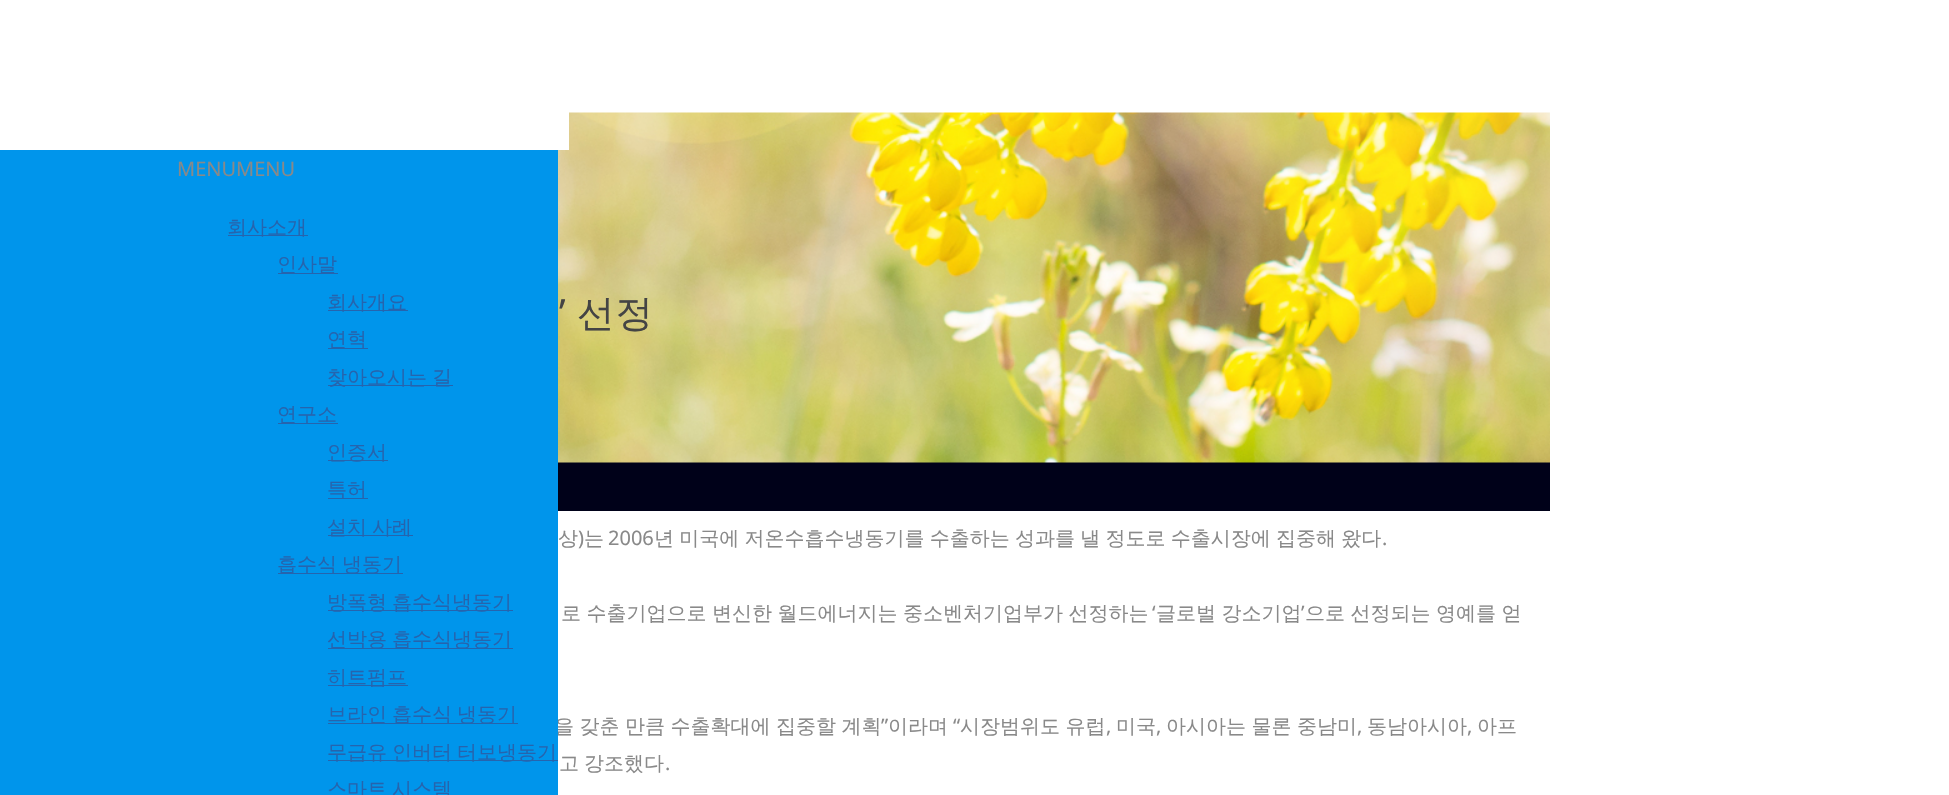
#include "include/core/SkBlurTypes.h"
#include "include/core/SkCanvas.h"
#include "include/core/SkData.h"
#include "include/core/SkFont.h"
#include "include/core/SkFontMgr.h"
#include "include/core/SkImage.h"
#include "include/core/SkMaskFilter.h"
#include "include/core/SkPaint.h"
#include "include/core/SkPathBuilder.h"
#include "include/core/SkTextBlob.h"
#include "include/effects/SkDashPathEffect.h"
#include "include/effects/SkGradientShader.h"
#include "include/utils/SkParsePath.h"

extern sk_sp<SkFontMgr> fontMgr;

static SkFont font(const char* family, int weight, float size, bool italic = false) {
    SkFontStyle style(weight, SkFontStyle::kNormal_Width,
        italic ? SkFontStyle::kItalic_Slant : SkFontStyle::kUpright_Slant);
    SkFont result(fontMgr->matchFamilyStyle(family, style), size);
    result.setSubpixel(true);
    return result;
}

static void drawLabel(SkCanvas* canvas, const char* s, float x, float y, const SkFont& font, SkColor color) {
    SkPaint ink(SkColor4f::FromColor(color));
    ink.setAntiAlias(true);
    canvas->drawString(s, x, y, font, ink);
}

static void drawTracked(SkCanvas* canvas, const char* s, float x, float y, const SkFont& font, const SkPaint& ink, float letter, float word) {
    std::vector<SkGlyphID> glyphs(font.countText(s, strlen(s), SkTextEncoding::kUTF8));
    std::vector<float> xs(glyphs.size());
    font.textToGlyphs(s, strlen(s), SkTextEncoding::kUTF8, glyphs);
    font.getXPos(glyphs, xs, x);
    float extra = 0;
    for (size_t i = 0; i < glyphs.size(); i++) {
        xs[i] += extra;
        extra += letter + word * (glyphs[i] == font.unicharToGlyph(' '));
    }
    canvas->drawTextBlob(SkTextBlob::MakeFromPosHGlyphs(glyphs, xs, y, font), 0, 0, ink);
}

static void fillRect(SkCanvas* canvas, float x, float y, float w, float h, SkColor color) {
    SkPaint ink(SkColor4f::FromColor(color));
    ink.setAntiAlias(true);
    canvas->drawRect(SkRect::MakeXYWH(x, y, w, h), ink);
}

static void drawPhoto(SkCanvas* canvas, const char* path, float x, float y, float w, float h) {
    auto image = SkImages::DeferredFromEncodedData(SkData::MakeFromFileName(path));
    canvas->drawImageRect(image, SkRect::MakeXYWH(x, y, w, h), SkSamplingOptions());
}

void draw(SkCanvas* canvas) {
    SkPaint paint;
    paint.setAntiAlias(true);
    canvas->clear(0xFFFFFFFF);
    fillRect(canvas, 558, 462, 992, 49, 0xFF000119);
    drawPhoto(canvas, "assets/img1.png", 558, 112, 992, 351);
    fillRect(canvas, 558, 112, 11, 38, 0xFFFFFFFF);
    SkFont font1 = font("WenQuanYi Zen Hei", 500, 20);
    paint.setColor(0xFF898989);
    drawTracked(canvas, "을 갖춘 만큼 수출확대에 집중할 계획", 554, 733, font1, paint, 0, -0.5f);
    fillRect(canvas, 0, 150, 558, 645, 0xFF0095EB);
    SkFont font2 = font("Noto Sans", 400, 20);
    drawLabel(canvas, "MENUMENU", 177, 176, font2, 0xFF898989);
    fillRect(canvas, 228, 235, 80, 1, 0xFF2564AE);
    drawLabel(canvas, "회사소개", 227, 234, font1, 0xFF2564AE);
    fillRect(canvas, 278, 273, 60, 1, 0xFF2564AE);
    drawLabel(canvas, "인사말", 277, 271, font1, 0xFF2564AE);
    fillRect(canvas, 328, 310, 80, 1, 0xFF2564AE);
    drawLabel(canvas, "회사개요", 327, 309, font1, 0xFF2564AE);
    fillRect(canvas, 328, 348, 40, 1, 0xFF2564AE);
    drawLabel(canvas, "연혁", 327, 346, font1, 0xFF2564AE);
    fillRect(canvas, 328, 385, 125, 1, 0xFF2564AE);
    paint.setColor(0xFF2564AE);
    drawTracked(canvas, "찾아오시는 길", 327, 384, font1, paint, 0, -1);
    fillRect(canvas, 278, 423, 60, 1, 0xFF2564AE);
    drawLabel(canvas, "연구소", 277, 421, font1, 0xFF2564AE);
    fillRect(canvas, 328, 460, 60, 1, 0xFF2564AE);
    drawLabel(canvas, "인증서", 327, 459, font1, 0xFF2564AE);
    fillRect(canvas, 328, 498, 40, 1, 0xFF2564AE);
    drawLabel(canvas, "특허", 327, 496, font1, 0xFF2564AE);
    fillRect(canvas, 328, 535, 85, 1, 0xFF2564AE);
    drawTracked(canvas, "설치 사례", 327, 534, font1, paint, 0, -1);
    fillRect(canvas, 278, 573, 125, 1, 0xFF2564AE);
    drawTracked(canvas, "흡수식 냉동기", 277, 571, font1, paint, 0, -1);
    fillRect(canvas, 328, 610, 185, 1, 0xFF2564AE);
    drawTracked(canvas, "방폭형 흡수식냉동기", 327, 609, font1, paint, 0, -1);
    fillRect(canvas, 328, 648, 185, 1, 0xFF2564AE);
    drawTracked(canvas, "선박용 흡수식냉동기", 327, 646, font1, paint, 0, -1);
    fillRect(canvas, 328, 685, 80, 1, 0xFF2564AE);
    drawLabel(canvas, "히트펌프", 327, 684, font1, 0xFF2564AE);
    fillRect(canvas, 328, 723, 190, 1, 0xFF2564AE);
    drawTracked(canvas, "브라인 흡수식 냉동기", 327, 721, font1, paint, 0, -1);
    fillRect(canvas, 328, 760, 230, 1, 0xFF2564AE);
    drawTracked(canvas, "무급유 인버터 터보냉동기", 327, 759, font1, paint, 0, -1);
    drawTracked(canvas, "스마트 시스템", 327, 796, font1, paint, 0, -1);
    SkFont font3 = font("Noto Sans", 400, 37.5f);
    paint.setColor(0xFF444444);
    drawTracked(canvas, "’", 559, 326, font3, paint, 1, 0);
    SkFont font4 = font("WenQuanYi Zen Hei", 500, 37.5f);
    drawTracked(canvas, "선정", 577, 326, font4, paint, 1, 0);
    paint.setColor(0xFF898989);
    drawTracked(canvas, "상", 558, 545, font1, paint, 0, -0.75f);
    drawLabel(canvas, ")", 578, 545, font2, 0xFF898989);
    drawLabel(canvas, "는", 584, 545, font1, 0xFF898989);
    drawLabel(canvas, "2006", 608, 545, font2, 0xFF898989);
    drawTracked(canvas, "년 미국에 저온수흡수냉동기를 수출하는 성과를 낼 정도로 수출시장에 집중해 왔다", 654, 545, font1, paint, 0, -0.75f);
    drawLabel(canvas, ".", 1382, 545, font2, 0xFF898989);
    drawTracked(canvas, "로 수출기업으로 변신한 월드에너지는 중소벤처기업부가 선정하는", 561, 620, font1, paint, 0, -0.5f);
    drawLabel(canvas, "‘", 1152, 620, font2, 0xFF898989);
    drawTracked(canvas, "글로벌 강소기업", 1156, 620, font1, paint, 0, -0.5f);
    drawLabel(canvas, "’", 1301, 620, font2, 0xFF898989);
    drawTracked(canvas, "으로 선정되는 영예를 얻", 1305, 620, font1, paint, 0, -0.5f);
    drawLabel(canvas, "”", 881, 733, font2, 0xFF898989);
    drawLabel(canvas, "이라며", 888, 733, font1, 0xFF898989);
    drawLabel(canvas, "“", 953, 733, font2, 0xFF898989);
    drawTracked(canvas, "시장범위도 유럽", 960, 733, font1, paint, 0, -0.5f);
    drawLabel(canvas, ",", 1106, 733, font2, 0xFF898989);
    drawLabel(canvas, "미국", 1116, 733, font1, 0xFF898989);
    drawLabel(canvas, ",", 1156, 733, font2, 0xFF898989);
    drawTracked(canvas, "아시아는 물론 중남미", 1166, 733, font1, paint, 0, -0.5f);
    drawLabel(canvas, ",", 1357, 733, font2, 0xFF898989);
    drawLabel(canvas, "동남아시아", 1367, 733, font1, 0xFF898989);
    drawLabel(canvas, ",", 1467, 733, font2, 0xFF898989);
    drawLabel(canvas, "아프", 1477, 733, font1, 0xFF898989);
    drawTracked(canvas, "고 강조했다", 559, 770, font1, paint, 0, -1);
    drawLabel(canvas, ".", 665, 770, font2, 0xFF898989);
}
